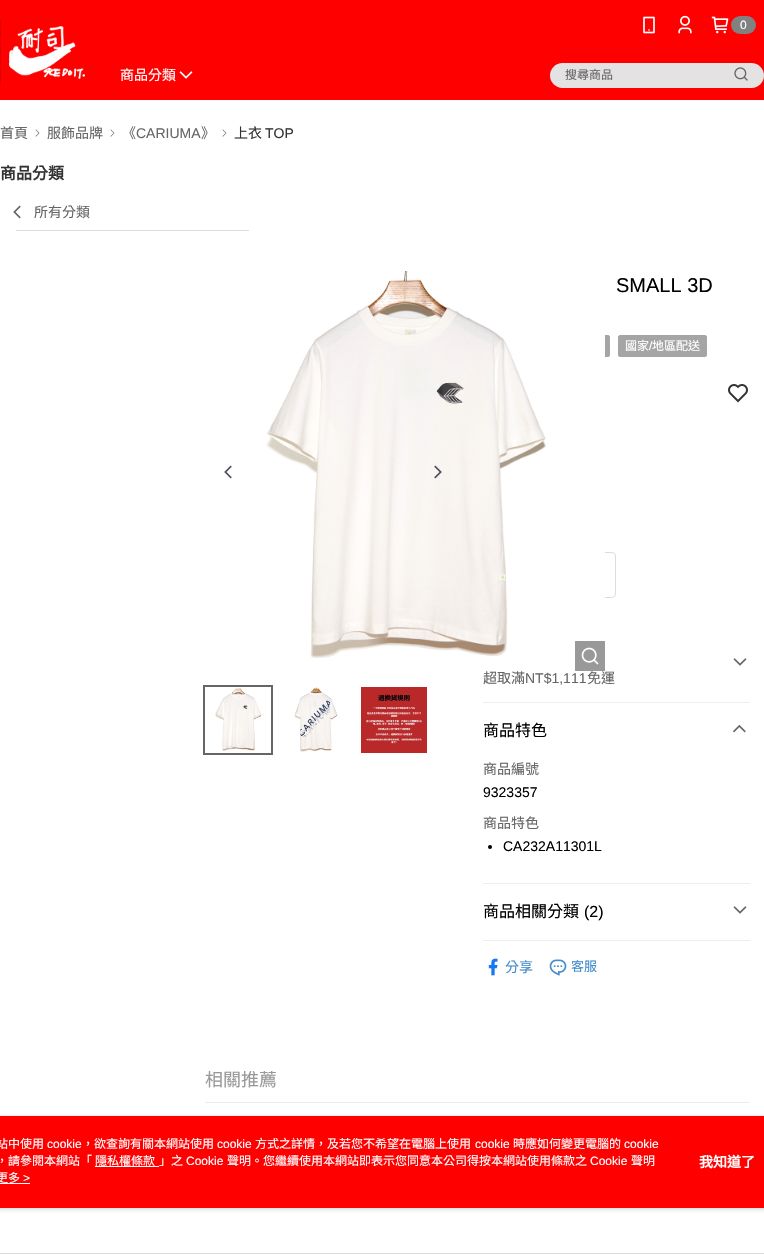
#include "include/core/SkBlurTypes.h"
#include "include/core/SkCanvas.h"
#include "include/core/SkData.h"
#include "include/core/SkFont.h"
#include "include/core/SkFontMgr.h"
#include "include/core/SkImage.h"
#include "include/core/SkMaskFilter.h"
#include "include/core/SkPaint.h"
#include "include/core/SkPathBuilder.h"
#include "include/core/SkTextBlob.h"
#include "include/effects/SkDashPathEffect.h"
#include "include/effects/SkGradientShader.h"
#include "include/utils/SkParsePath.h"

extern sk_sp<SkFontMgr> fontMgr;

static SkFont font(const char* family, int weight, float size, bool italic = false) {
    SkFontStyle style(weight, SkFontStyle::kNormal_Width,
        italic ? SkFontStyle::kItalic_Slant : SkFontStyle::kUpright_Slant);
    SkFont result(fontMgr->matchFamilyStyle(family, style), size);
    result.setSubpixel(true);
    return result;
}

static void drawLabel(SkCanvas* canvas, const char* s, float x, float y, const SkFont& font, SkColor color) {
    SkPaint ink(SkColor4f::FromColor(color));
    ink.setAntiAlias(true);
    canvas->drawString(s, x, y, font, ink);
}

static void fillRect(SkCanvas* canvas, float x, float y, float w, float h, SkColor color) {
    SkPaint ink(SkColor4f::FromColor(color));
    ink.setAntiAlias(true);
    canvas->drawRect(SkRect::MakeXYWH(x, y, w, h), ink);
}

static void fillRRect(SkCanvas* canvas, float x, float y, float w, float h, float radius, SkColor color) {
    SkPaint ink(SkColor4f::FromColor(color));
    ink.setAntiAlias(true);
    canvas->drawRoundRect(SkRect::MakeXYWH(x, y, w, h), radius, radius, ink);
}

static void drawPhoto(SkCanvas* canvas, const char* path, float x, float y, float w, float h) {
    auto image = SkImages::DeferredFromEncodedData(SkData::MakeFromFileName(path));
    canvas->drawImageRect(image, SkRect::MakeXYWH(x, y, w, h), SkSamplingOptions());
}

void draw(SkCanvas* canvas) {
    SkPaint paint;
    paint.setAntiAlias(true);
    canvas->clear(0xFFFFFFFF);
    fillRect(canvas, 0, 0, 764, 100, 0xFFFF0001);
    drawPhoto(canvas, "assets/img1.png", 0, 20, 85, 65);
    drawPhoto(canvas, "assets/img2.png", 643, 16, 12, 18);
    drawPhoto(canvas, "assets/img3.png", 678, 15, 14, 19);
    drawPhoto(canvas, "assets/img4.png", 711, 16, 18, 18);
    fillRRect(canvas, 731, 16, 25, 18, 9, 0xFF818181);
    SkFont font1 = font("Liberation Sans", 400, 12);
    drawLabel(canvas, "0", 740, 29, font1, 0xFFFFFFFF);
    SkFont font2 = font("Noto Sans CJK TC", 400, 14);
    drawLabel(canvas, "商品分類", 120, 80, font2, 0xFFFFFFFF);
    drawPhoto(canvas, "assets/img5.png", 179, 71, 14, 8);
    fillRRect(canvas, 550, 63, 214, 25, 12.5f, 0xFFE4E2E2);
    SkFont font3 = font("Noto Sans CJK TC", 400, 12);
    drawLabel(canvas, "搜尋商品", 565, 79, font3, 0xFF666666);
    drawPhoto(canvas, "assets/img6.png", 734, 67, 14, 14);
    drawLabel(canvas, "首頁", 0, 138, font2, 0xFF666666);
    drawPhoto(canvas, "assets/img7.png", 35, 129, 5, 8);
    drawLabel(canvas, "服飾品牌", 47, 138, font2, 0xFF666666);
    drawPhoto(canvas, "assets/img7.png", 110, 129, 5, 8);
    drawLabel(canvas, "《", 122, 138, font2, 0xFF666666);
    SkFont font4 = font("Liberation Sans", 400, 14);
    drawLabel(canvas, "CARIUMA", 136, 138, font4, 0xFF666666);
    drawLabel(canvas, "》", 201, 138, font2, 0xFF666666);
    drawPhoto(canvas, "assets/img7.png", 222, 129, 5, 8);
    drawLabel(canvas, "上衣", 234, 138, font2, 0xFF333333);
    drawLabel(canvas, "TOP", 265, 138, font4, 0xFF333333);
    SkFont font5 = font("Noto Sans CJK TC", 700, 16);
    drawLabel(canvas, "商品分類", 0, 179, font5, 0xFF333333);
    drawPhoto(canvas, "assets/img8.png", 13, 205, 8, 14);
    drawLabel(canvas, "所有分類", 34, 217, font2, 0xFF666666);
    fillRect(canvas, 16, 230, 233, 1, 0xFFDDDDDD);
    drawPhoto(canvas, "assets/img9.png", 224, 465, 8, 14);
    paint.setColor(0xFFA5A5A5);
    canvas->drawRoundRect(SkRect::MakeXYWH(483.5f, 335.5f, 126, 21), 1.5f, 1.5f, paint);
    paint.setStroke(true);
    paint.setStrokeWidth(1);
    canvas->drawRoundRect(SkRect::MakeXYWH(483.5f, 335.5f, 126, 21), 1.5f, 1.5f, paint);
    paint.setColor(0xFFDDDDDD);
    canvas->drawRoundRect(SkRect::MakeXYWH(483.5f, 552.5f, 132, 45), 3.5f, 3.5f, paint);
    drawPhoto(canvas, "assets/img10.png", 266, 271, 339, 387);
    fillRect(canvas, 575, 641, 30, 30, 0xFF999999);
    drawPhoto(canvas, "assets/img11.png", 581, 647, 18, 18);
    drawPhoto(canvas, "assets/img12.png", 434, 465, 8, 14);
    drawPhoto(canvas, "assets/img13.png", 215, 687, 47, 64);
    paint.setStrokeWidth(2);
    paint.setColor(0xFF666666);
    canvas->drawRect(SkRect::MakeXYWH(204, 686, 68, 68), paint);
    drawPhoto(canvas, "assets/img14.png", 294, 687, 44, 65);
    drawPhoto(canvas, "assets/img15.png", 361, 687, 66, 66);
    SkFont font6 = font("Liberation Sans", 400, 20);
    drawLabel(canvas, "SMALL 3D", 616, 292, font6, 0xFF000000);
    paint.setStroke(false);
    paint.setColor(0xFFA5A5A5);
    canvas->drawRoundRect(SkRect::MakeXYWH(618.5f, 335.5f, 88, 21), 1.5f, 1.5f, paint);
    paint.setStroke(true);
    paint.setStrokeWidth(1);
    canvas->drawRoundRect(SkRect::MakeXYWH(618.5f, 335.5f, 88, 21), 1.5f, 1.5f, paint);
    drawLabel(canvas, "國家", 625, 350, font3, 0xFFFFFFFF);
    drawLabel(canvas, "/", 649, 350, font1, 0xFFFFFFFF);
    drawLabel(canvas, "地區配送", 652, 350, font3, 0xFFFFFFFF);
    drawPhoto(canvas, "assets/img16.png", 728, 384, 20, 19);
    fillRect(canvas, 483, 702, 267, 1, 0xFFECEFF1);
    drawPhoto(canvas, "assets/img17.png", 733, 658, 14, 8);
    drawLabel(canvas, "超取滿", 483, 683, font2, 0xFF666666);
    drawLabel(canvas, "NT$1,111", 525, 683, font4, 0xFF666666);
    drawLabel(canvas, "免運", 587, 683, font2, 0xFF666666);
    fillRect(canvas, 483, 883, 267, 1, 0xFFECEFF1);
    SkFont font7 = font("Noto Sans CJK TC", 400, 16);
    drawLabel(canvas, "商品特色", 483, 736, font7, 0xFF000000);
    drawPhoto(canvas, "assets/img18.png", 733, 724, 13, 9);
    drawLabel(canvas, "商品編號", 483, 774, font2, 0xFF666666);
    drawLabel(canvas, "9323357", 483, 797, font4, 0xFF000000);
    drawLabel(canvas, "商品特色", 483, 828, font2, 0xFF666666);
    paint.setStroke(false);
    paint.setColor(0xFF000000);
    canvas->drawCircle(490, 847, 2, paint);
    drawLabel(canvas, "CA232A11301L", 503, 851, font4, 0xFF000000);
    fillRect(canvas, 483, 940, 267, 1, 0xFFECEFF1);
    drawLabel(canvas, "商品相關分類", 483, 917, font7, 0xFF000000);
    SkFont font8 = font("Liberation Sans", 400, 16);
    drawLabel(canvas, "(2)", 584, 917, font8, 0xFF000000);
    drawPhoto(canvas, "assets/img17.png", 733, 906, 14, 8);
    drawPhoto(canvas, "assets/img19.png", 488, 958, 10, 18);
    drawLabel(canvas, "分享", 505, 972, font2, 0xFF428BCA);
    drawPhoto(canvas, "assets/img20.png", 549, 959, 18, 17);
    SkFont font9 = font("Noto Sans CJK TC", 400, 13);
    drawLabel(canvas, "客服", 571, 971, font9, 0xFF428BCA);
    fillRect(canvas, 205, 1102, 545, 1, 0xFFECECEC);
    SkFont font10 = font("Noto Sans CJK TC", 400, 18);
    drawLabel(canvas, "相關推薦", 205, 1086, font10, 0xFF999999);
    fillRect(canvas, 0, 1253, 764, 1, 0xFFDADADA);
    paint.setColor(0x80979797);
    paint.setMaskFilter(SkMaskFilter::MakeBlur(kNormal_SkBlurStyle, 2));
    canvas->drawRoundRect(SkRect::MakeXYWH(-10, 1117, 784, 92), 4, 4, paint);
    paint.setMaskFilter(nullptr);
    fillRect(canvas, 0, 1116, 764, 92, 0xFFFF0001);
    drawLabel(canvas, "站中使用", -4, 1148, font3, 0xFFFFFFFF);
    drawLabel(canvas, "cookie", 47, 1148, font1, 0xFFFFFFFF);
    drawLabel(canvas, "，欲查詢有關本網站使用", 82, 1148, font3, 0xFFFFFFFF);
    drawLabel(canvas, "cookie", 217, 1148, font1, 0xFFFFFFFF);
    drawLabel(canvas, "方式之詳情，及若您不希望在電腦上使用", 255, 1148, font3, 0xFFFFFFFF);
    drawLabel(canvas, "cookie", 475, 1148, font1, 0xFFFFFFFF);
    drawLabel(canvas, "時應如何變更電腦的", 513, 1148, font3, 0xFFFFFFFF);
    drawLabel(canvas, "cookie", 624, 1148, font1, 0xFFFFFFFF);
    drawLabel(canvas, "，請參閱本網站「", -4, 1165, font3, 0xFFFFFFFF);
    drawLabel(canvas, "隱私權條款", 95, 1165, font3, 0xFFFFFFFF);
    fillRect(canvas, 95, 1166, 64, 1, 0xFFFFFFFF);
    drawLabel(canvas, "」之", 159, 1165, font3, 0xFFFFFFFF);
    drawLabel(canvas, "Cookie", 186, 1165, font1, 0xFFFFFFFF);
    drawLabel(canvas, "聲明。您繼續使用本網站即表示您同意本公司得按本網站使用條款之", 227, 1165, font3, 0xFFFFFFFF);
    drawLabel(canvas, "Cookie", 590, 1165, font1, 0xFFFFFFFF);
    drawLabel(canvas, "聲明", 631, 1165, font3, 0xFFFFFFFF);
    drawLabel(canvas, "更多", -4, 1182, font3, 0xFFFFFFFF);
    drawLabel(canvas, ">", 23, 1182, font1, 0xFFFFFFFF);
    fillRect(canvas, 0, 1183, 30, 1, 0xFFFFFFFF);
    SkFont font11 = font("Noto Sans CJK TC", 700, 14);
    drawLabel(canvas, "我知道了", 699, 1167, font11, 0xFFFFFFFF);
}
